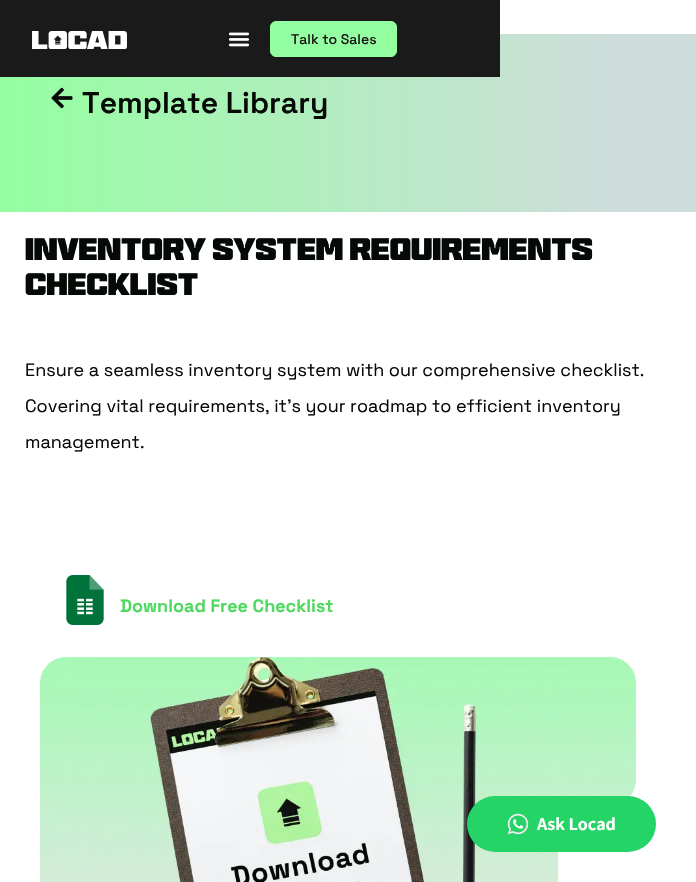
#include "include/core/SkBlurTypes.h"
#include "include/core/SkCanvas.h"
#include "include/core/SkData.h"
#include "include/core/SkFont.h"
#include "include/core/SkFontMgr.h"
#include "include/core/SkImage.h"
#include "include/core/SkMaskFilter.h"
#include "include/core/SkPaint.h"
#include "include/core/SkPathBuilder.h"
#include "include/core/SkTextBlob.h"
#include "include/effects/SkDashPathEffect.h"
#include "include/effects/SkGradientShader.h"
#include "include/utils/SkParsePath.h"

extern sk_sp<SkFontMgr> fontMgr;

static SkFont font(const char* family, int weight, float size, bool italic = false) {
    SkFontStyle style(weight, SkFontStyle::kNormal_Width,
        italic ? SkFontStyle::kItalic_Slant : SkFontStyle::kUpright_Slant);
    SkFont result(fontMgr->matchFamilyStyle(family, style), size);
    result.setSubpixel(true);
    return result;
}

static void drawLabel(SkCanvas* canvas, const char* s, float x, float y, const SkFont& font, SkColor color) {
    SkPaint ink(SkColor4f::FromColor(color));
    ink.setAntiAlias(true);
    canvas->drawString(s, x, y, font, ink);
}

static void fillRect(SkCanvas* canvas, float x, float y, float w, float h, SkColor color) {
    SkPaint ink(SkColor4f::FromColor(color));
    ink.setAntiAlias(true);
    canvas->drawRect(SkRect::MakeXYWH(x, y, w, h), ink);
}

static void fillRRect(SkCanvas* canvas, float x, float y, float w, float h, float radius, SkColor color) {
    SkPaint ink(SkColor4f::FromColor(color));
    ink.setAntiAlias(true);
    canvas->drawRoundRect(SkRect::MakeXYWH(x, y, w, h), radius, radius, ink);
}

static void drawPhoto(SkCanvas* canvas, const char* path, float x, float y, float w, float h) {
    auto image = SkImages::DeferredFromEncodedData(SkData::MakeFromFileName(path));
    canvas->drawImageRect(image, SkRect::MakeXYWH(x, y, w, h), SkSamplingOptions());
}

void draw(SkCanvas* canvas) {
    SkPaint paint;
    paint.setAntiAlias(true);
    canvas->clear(0xFFFFFFFF);
    {
        const SkColor colors[] = {0xFF94FFA1, 0xFFCFDCDC};
        const float stops[] = {0, 0.9f};
        const SkPoint ends[] = {{0, 123}, {696, 123}};
        paint.setShader(SkGradientShader::MakeLinear(ends, colors, stops, 2, SkTileMode::kClamp));
        paint.setAlpha(255);
    }
    canvas->drawRect(SkRect::MakeXYWH(0, 34, 696, 178), paint);
    fillRect(canvas, 0, 0, 500, 77, 0xFF1A1A1A);
    drawPhoto(canvas, "assets/img1.png", 32, 31, 95, 18);
    drawPhoto(canvas, "assets/img2.png", 228, 32, 22, 15);
    paint.setShader(nullptr);
    paint.setColor(0xFF94FFA1);
    canvas->drawRoundRect(SkRect::MakeXYWH(270.5f, 21.5f, 126, 35), 5.5f, 5.5f, paint);
    paint.setStroke(true);
    paint.setStrokeWidth(1);
    canvas->drawRoundRect(SkRect::MakeXYWH(270.5f, 21.5f, 126, 35), 5.5f, 5.5f, paint);
    SkFont font1 = font("Space Grotesk", 500, 14);
    drawLabel(canvas, "Talk to Sales", 291, 44, font1, 0xFF1A1A1A);
    drawPhoto(canvas, "assets/img3.png", 51, 87, 22, 22);
    SkFont font2 = font("Space Grotesk", 600, 30);
    drawLabel(canvas, "Template Library", 82, 113, font2, 0xFF060A06);
    SkFont font3 = font("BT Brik", 500, 32);
    drawLabel(canvas, "Inventory System Requirements", 25, 260, font3, 0xFF060A06);
    drawLabel(canvas, "Checklist", 25, 295, font3, 0xFF060A06);
    SkFont font4 = font("Space Grotesk", 400, 18);
    drawLabel(canvas, "Ensure a seamless inventory system with our comprehensive checklist.", 25, 376, font4, 0xFF060A06);
    drawLabel(canvas, "Covering vital requirements, it’s your roadmap to efficient inventory", 25, 412, font4, 0xFF060A06);
    drawLabel(canvas, "management.", 25, 448, font4, 0xFF060A06);
    drawPhoto(canvas, "assets/img4.png", 66, 575, 38, 50);
    SkFont font5 = font("Space Grotesk", 700, 18);
    drawLabel(canvas, "Download Free Checklist", 120, 612, font5, 0xFF50D860);
    drawPhoto(canvas, "assets/img5.png", 40, 657, 596, 225);
    fillRRect(canvas, 467, 796, 189, 56, 28, 0xFF25D466);
    drawPhoto(canvas, "assets/img6.png", 507, 813, 22, 22);
    SkFont font6 = font("Noto Sans TC", 700, 16);
    drawLabel(canvas, "Ask Locad", 537, 830, font6, 0xFFFFFFFF);
}
